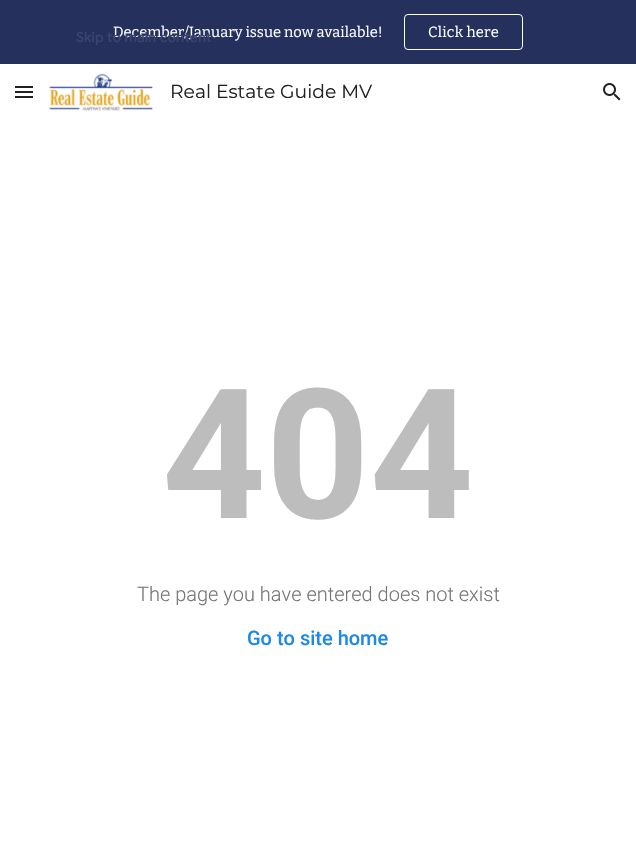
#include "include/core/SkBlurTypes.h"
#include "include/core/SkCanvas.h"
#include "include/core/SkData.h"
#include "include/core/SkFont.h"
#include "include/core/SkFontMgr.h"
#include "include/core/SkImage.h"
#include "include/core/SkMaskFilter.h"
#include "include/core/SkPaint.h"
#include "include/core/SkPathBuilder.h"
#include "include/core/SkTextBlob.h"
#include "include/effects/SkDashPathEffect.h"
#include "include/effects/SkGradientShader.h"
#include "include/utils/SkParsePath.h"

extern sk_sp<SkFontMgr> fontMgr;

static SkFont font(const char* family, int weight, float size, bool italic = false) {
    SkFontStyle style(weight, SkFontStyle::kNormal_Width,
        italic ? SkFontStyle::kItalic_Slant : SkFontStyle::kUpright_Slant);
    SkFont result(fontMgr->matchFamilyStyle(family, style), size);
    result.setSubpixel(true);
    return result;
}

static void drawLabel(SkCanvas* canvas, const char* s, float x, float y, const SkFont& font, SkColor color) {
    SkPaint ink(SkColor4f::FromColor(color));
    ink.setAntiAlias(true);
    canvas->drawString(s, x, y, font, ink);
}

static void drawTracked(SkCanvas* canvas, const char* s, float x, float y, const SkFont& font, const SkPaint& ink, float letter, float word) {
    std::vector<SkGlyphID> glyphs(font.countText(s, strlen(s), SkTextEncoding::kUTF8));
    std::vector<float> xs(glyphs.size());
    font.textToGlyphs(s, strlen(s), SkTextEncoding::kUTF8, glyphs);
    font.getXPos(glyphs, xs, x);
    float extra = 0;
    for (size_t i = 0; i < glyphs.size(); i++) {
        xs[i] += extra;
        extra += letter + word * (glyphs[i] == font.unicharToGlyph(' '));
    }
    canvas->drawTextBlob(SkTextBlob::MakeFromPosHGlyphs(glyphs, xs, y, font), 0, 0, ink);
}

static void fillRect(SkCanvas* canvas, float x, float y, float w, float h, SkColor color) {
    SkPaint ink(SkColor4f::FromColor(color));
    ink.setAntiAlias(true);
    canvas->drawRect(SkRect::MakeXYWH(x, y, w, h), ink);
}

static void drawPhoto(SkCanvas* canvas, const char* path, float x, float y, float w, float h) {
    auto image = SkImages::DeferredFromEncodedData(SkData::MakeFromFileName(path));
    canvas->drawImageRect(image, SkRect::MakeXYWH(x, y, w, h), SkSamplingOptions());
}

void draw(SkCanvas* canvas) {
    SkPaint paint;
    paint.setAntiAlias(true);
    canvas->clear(0xFFFFFFFF);
    fillRect(canvas, 0, 0, 636, 64, 0xFF25305D);
    SkFont font1 = font("Bitter", 400, 14.7f);
    drawLabel(canvas, "December/January issue now available!", 113, 37, font1, 0xFFFFFFFF);
    paint.setStroke(true);
    paint.setStrokeWidth(1);
    paint.setColor(0xFFFFFFFF);
    canvas->drawRoundRect(SkRect::MakeXYWH(404.5f, 14.5f, 118, 35), 3.5f, 3.5f, paint);
    paint.setStroke(false);
    drawTracked(canvas, "Click here", 428, 37, font1, paint, 0.25f, 0);
    fillRect(canvas, 15, 86, 18, 2, 0xFF212121);
    fillRect(canvas, 15, 91, 18, 2, 0xFF212121);
    fillRect(canvas, 15, 96, 18, 2, 0xFF212121);
    drawPhoto(canvas, "assets/img1.png", 49, 73, 104, 38);
    SkFont font2 = font("Montserrat", 400, 18.75f);
    drawLabel(canvas, "Real Estate Guide MV", 170, 98, font2, 0xFF212121);
    drawPhoto(canvas, "assets/img2.png", 603, 83, 18, 18);
    SkFont font3 = font("Roboto", 700, 181);
    drawLabel(canvas, "404", 162, 518, font3, 0xFFBDBDBD);
    SkFont font4 = font("Roboto", 300, 20);
    drawLabel(canvas, "The page you have entered does not exist", 137, 601, font4, 0xFF757575);
    SkFont font5 = font("Roboto", 500, 20);
    drawLabel(canvas, "Go to site home", 247, 645, font5, 0xFF1E88E5);
    SkFont font6 = font("Google Sans", 500, 14);
    paint.setColor(0xFF3A446C);
    drawTracked(canvas, "Skip to main content", 76, 42, font6, paint, 0.1f, 0);
}
